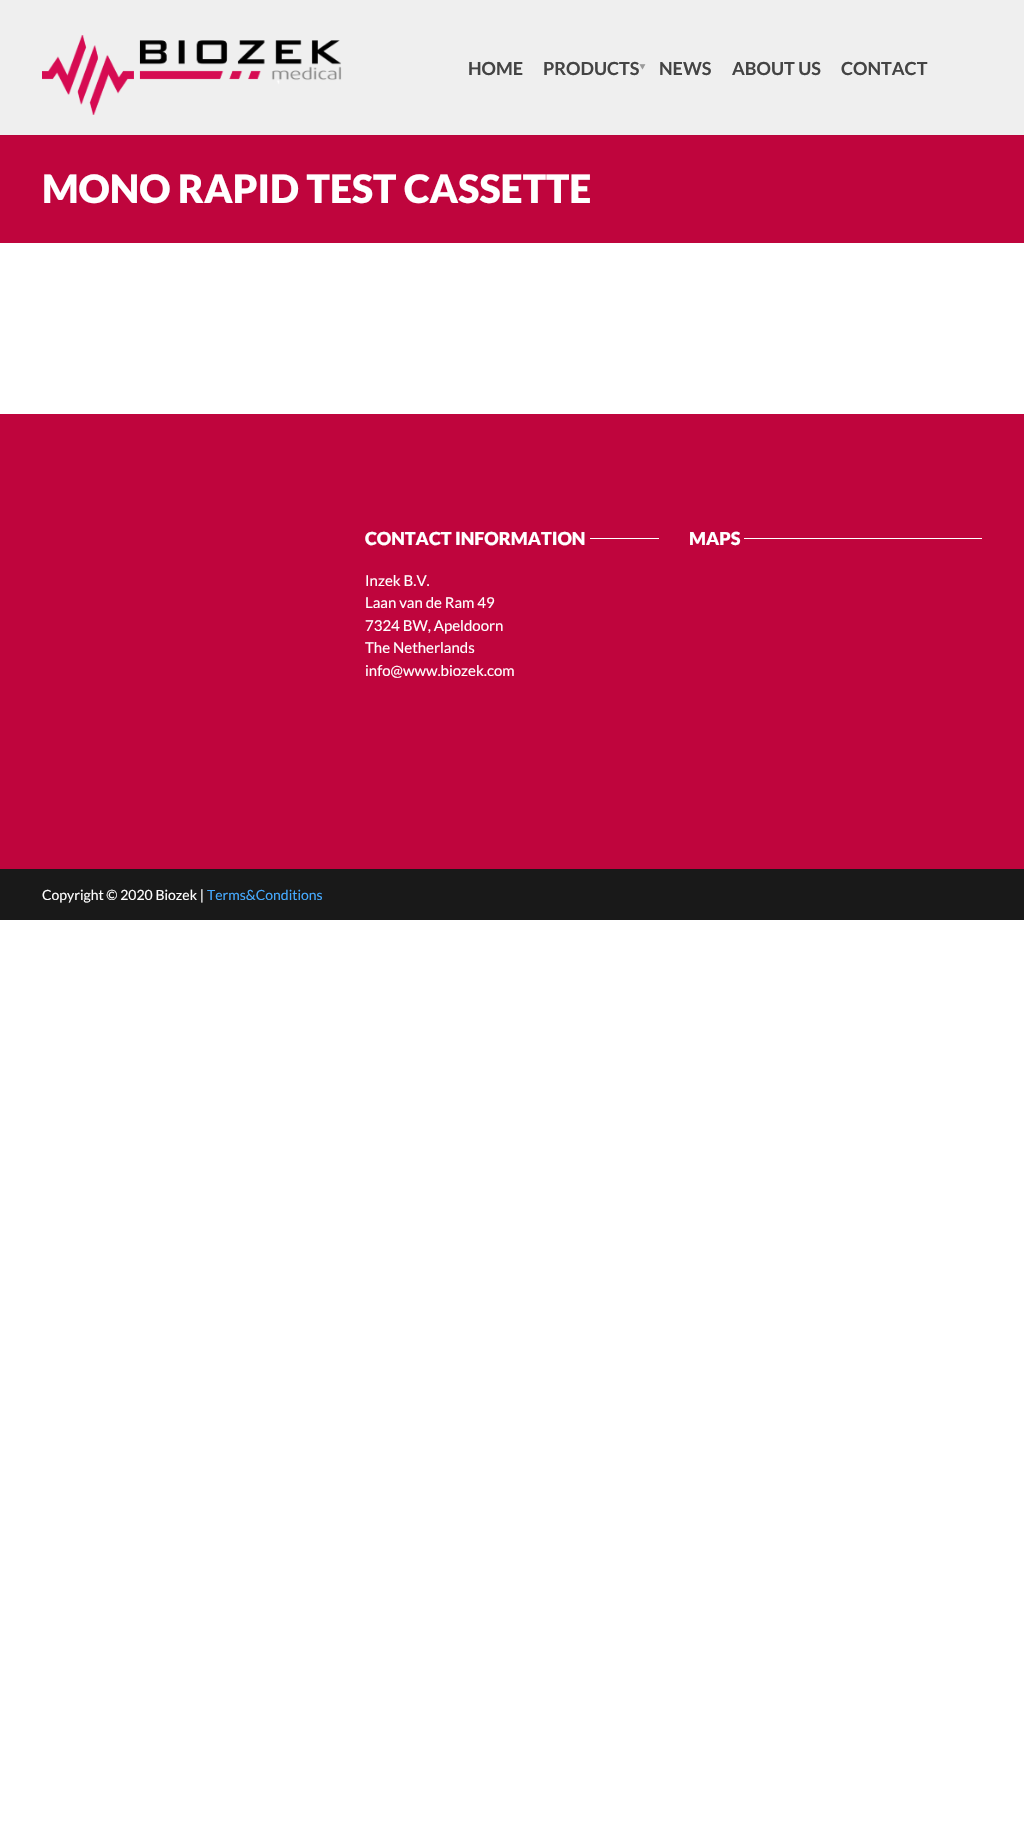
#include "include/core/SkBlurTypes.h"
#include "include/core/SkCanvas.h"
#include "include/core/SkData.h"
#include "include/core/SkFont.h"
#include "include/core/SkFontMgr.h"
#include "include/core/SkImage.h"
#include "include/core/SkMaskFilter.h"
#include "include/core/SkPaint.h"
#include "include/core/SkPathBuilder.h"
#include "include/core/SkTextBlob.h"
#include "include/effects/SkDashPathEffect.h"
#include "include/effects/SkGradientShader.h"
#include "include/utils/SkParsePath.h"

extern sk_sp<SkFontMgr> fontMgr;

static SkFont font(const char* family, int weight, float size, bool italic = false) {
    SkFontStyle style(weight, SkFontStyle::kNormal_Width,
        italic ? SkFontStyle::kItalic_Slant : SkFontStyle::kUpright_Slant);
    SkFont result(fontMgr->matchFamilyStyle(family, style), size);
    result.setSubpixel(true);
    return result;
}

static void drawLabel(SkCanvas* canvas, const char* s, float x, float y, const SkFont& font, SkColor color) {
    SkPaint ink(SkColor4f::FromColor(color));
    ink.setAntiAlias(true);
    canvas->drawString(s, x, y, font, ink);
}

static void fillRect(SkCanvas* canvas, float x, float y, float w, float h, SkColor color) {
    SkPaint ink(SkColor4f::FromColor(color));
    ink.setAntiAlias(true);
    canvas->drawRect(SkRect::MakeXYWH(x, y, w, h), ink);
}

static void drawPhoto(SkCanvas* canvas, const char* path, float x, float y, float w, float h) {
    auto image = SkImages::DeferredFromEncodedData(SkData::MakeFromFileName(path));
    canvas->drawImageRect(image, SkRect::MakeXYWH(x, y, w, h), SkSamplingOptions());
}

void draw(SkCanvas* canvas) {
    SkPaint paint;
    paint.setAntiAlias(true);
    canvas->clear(0xFFFFFFFF);
    fillRect(canvas, 0, 135, 1024, 108, 0xFFBF053D);
    paint.setColor(0x33000000);
    paint.setMaskFilter(SkMaskFilter::MakeBlur(kNormal_SkBlurStyle, 0.5f));
    canvas->drawRect(SkRect::MakeXYWH(0, 0, 1024, 135), paint);
    paint.setMaskFilter(nullptr);
    fillRect(canvas, 0, 0, 1024, 135, 0xFFEFEFEF);
    drawPhoto(canvas, "assets/img1.png", 42, 35, 300, 80);
    SkFont font1 = font("Lato", 700, 18);
    drawLabel(canvas, "HOME", 468, 75, font1, 0xFF444444);
    drawLabel(canvas, "PRODUCTS", 543, 75, font1, 0xFF444444);
    SkFont font2 = font("Noto Sans", 400, 20);
    canvas->save();
    canvas->rotate(90, 635, 63);
    drawLabel(canvas, "‣", 635, 63, font2, 0xFF9A9A9A);
    canvas->restore();
    drawLabel(canvas, "NEWS", 659, 75, font1, 0xFF444444);
    drawLabel(canvas, "ABOUT US", 732, 75, font1, 0xFF444444);
    drawLabel(canvas, "CONTACT", 841, 75, font1, 0xFF444444);
    SkFont font3 = font("Lato", 900, 39);
    drawLabel(canvas, "MONO RAPID TEST CASSETTE", 42, 203, font3, 0xFFFFFFFF);
    fillRect(canvas, 0, 414, 1024, 455, 0xFFBF053D);
    SkFont font4 = font("Lato", 900, 18);
    drawLabel(canvas, "CONTACT INFORMATION", 365, 545, font4, 0xFFFFFFFF);
    fillRect(canvas, 590, 538, 69, 1, 0xFFFFFFFF);
    SkFont font5 = font("Lato", 400, 15);
    drawLabel(canvas, "Inzek B.V.", 365, 586, font5, 0xFFFFFFFF);
    drawLabel(canvas, "Laan van de Ram 49", 365, 608, font5, 0xFFFFFFFF);
    drawLabel(canvas, "7324 BW, Apeldoorn", 365, 631, font5, 0xFFFFFFFF);
    drawLabel(canvas, "The Netherlands", 365, 653, font5, 0xFFFFFFFF);
    drawLabel(canvas, "info@www.biozek.com", 365, 676, font5, 0xFFFFFFFF);
    drawLabel(canvas, "MAPS", 689, 545, font4, 0xFFFFFFFF);
    fillRect(canvas, 744, 538, 238, 1, 0xFFFFFFFF);
    fillRect(canvas, 0, 869, 1024, 51, 0xFF191919);
    SkFont font6 = font("Lato", 400, 14);
    drawLabel(canvas, "Copyright © 2020 Biozek |", 42, 900, font6, 0xFFFFFFFF);
    drawLabel(canvas, "Terms&Conditions", 207, 900, font6, 0xFF45AAFF);
}
